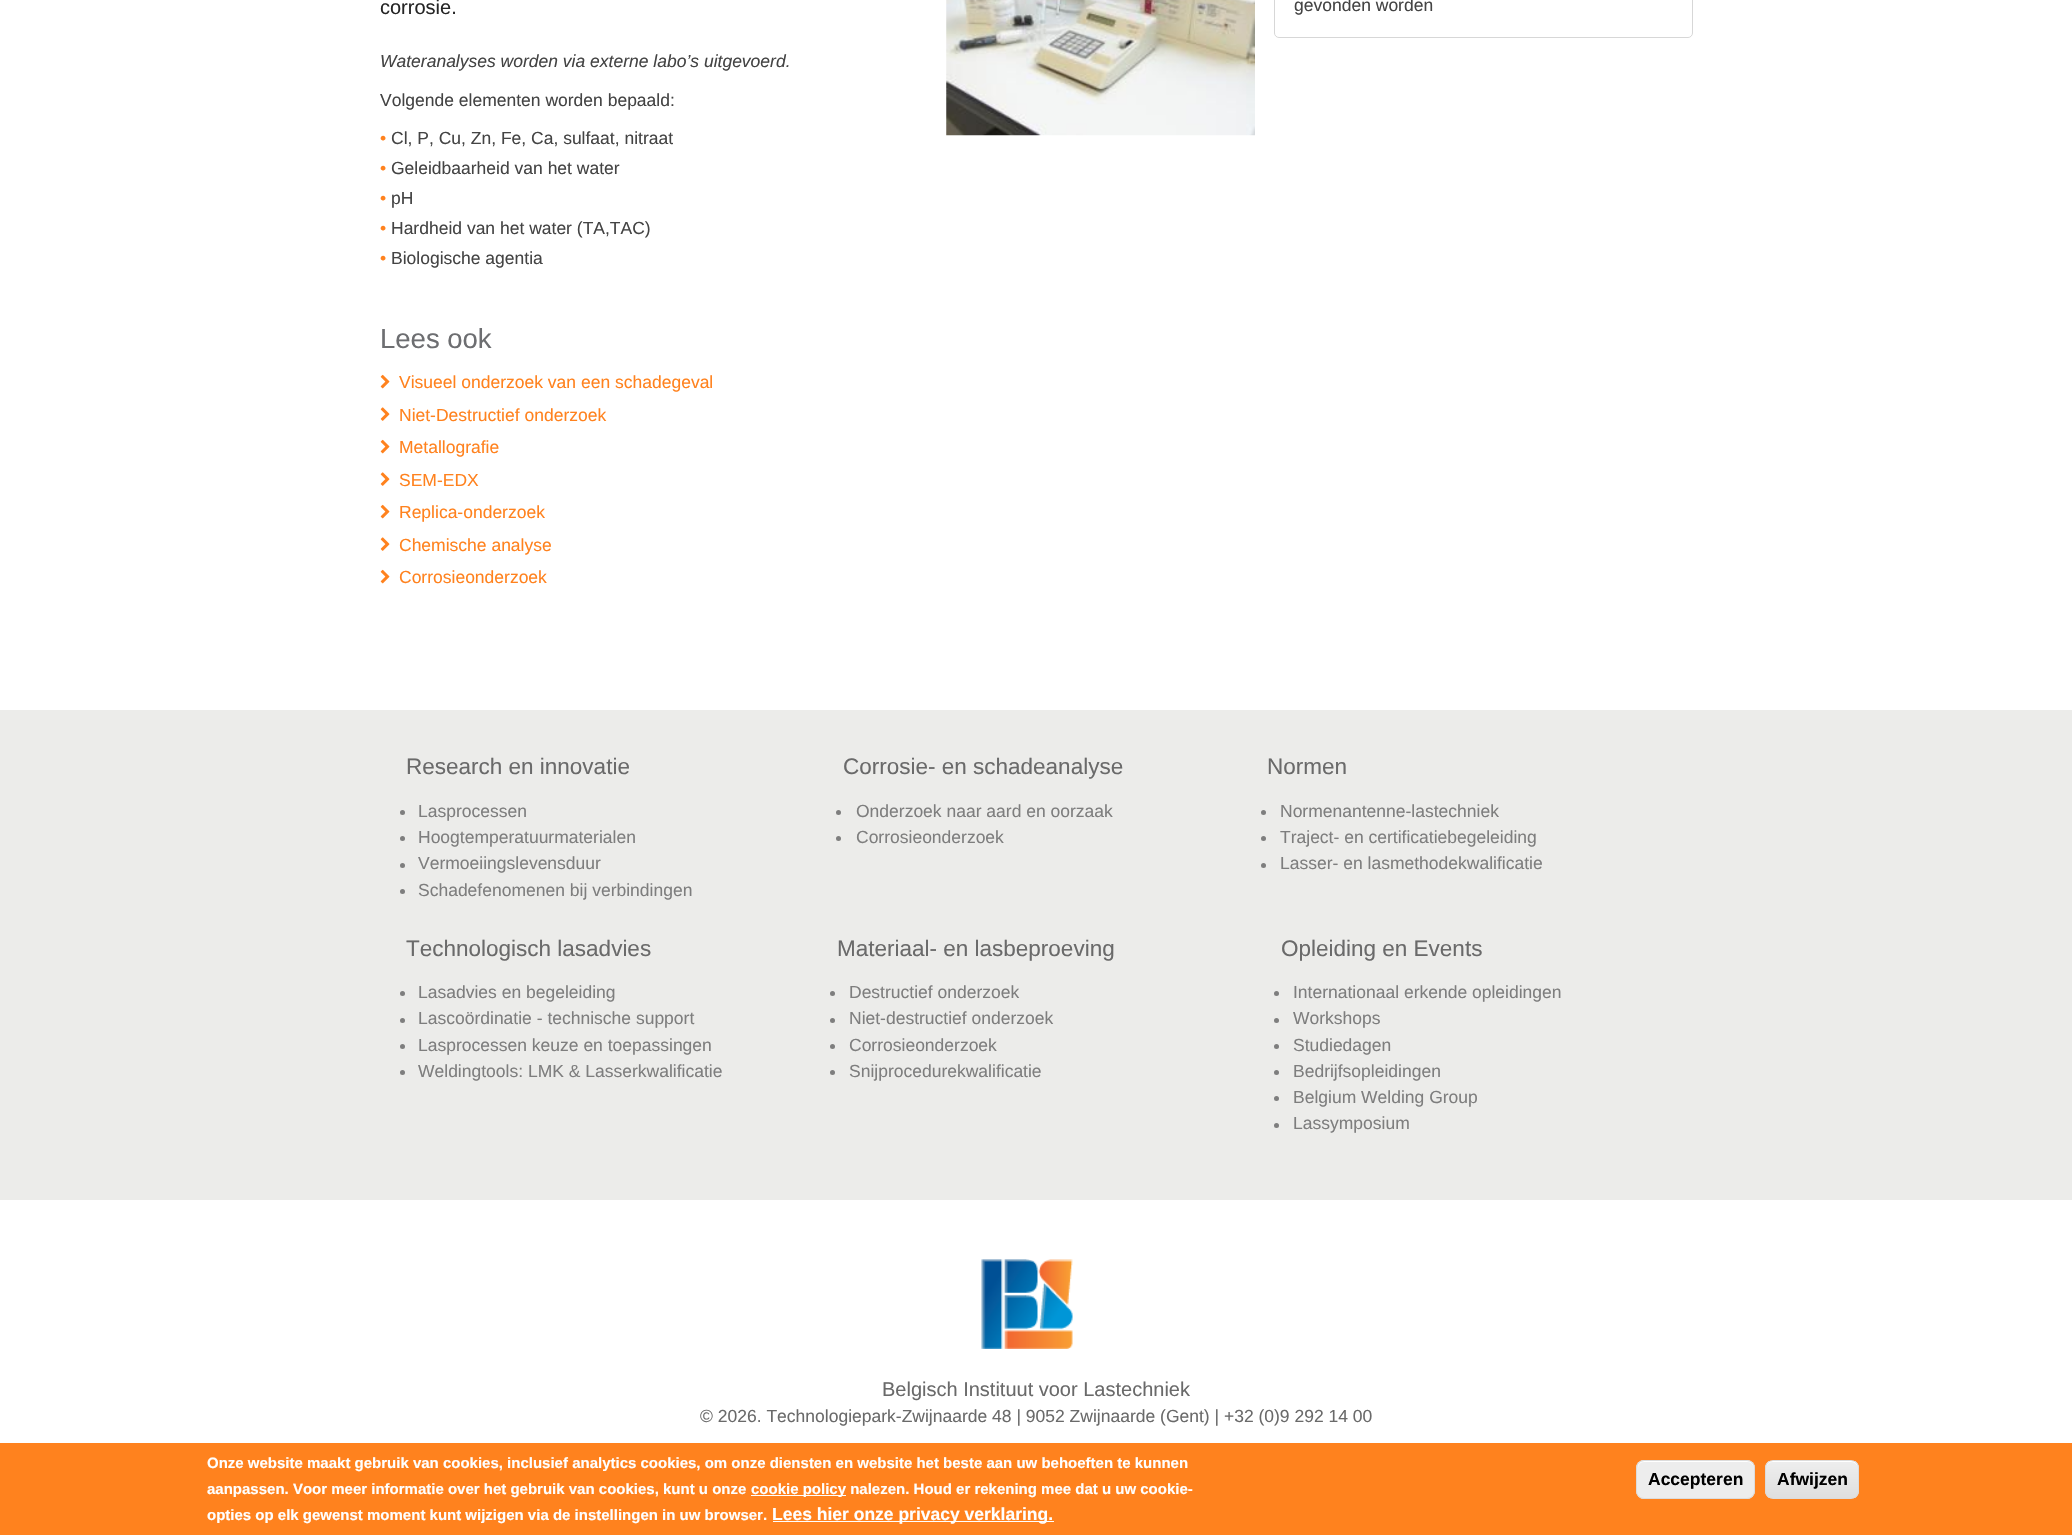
#include "include/core/SkBlurTypes.h"
#include "include/core/SkCanvas.h"
#include "include/core/SkData.h"
#include "include/core/SkFont.h"
#include "include/core/SkFontMgr.h"
#include "include/core/SkImage.h"
#include "include/core/SkMaskFilter.h"
#include "include/core/SkPaint.h"
#include "include/core/SkPathBuilder.h"
#include "include/core/SkTextBlob.h"
#include "include/effects/SkDashPathEffect.h"
#include "include/effects/SkGradientShader.h"
#include "include/utils/SkParsePath.h"

extern sk_sp<SkFontMgr> fontMgr;

static SkFont font(const char* family, int weight, float size, bool italic = false) {
    SkFontStyle style(weight, SkFontStyle::kNormal_Width,
        italic ? SkFontStyle::kItalic_Slant : SkFontStyle::kUpright_Slant);
    SkFont result(fontMgr->matchFamilyStyle(family, style), size);
    result.setSubpixel(true);
    return result;
}

static void drawLabel(SkCanvas* canvas, const char* s, float x, float y, const SkFont& font, SkColor color) {
    SkPaint ink(SkColor4f::FromColor(color));
    ink.setAntiAlias(true);
    canvas->drawString(s, x, y, font, ink);
}

static void fillRect(SkCanvas* canvas, float x, float y, float w, float h, SkColor color) {
    SkPaint ink(SkColor4f::FromColor(color));
    ink.setAntiAlias(true);
    canvas->drawRect(SkRect::MakeXYWH(x, y, w, h), ink);
}

static void fillRRect(SkCanvas* canvas, float x, float y, float w, float h, float radius, SkColor color) {
    SkPaint ink(SkColor4f::FromColor(color));
    ink.setAntiAlias(true);
    canvas->drawRoundRect(SkRect::MakeXYWH(x, y, w, h), radius, radius, ink);
}

static void drawPhoto(SkCanvas* canvas, const char* path, float x, float y, float w, float h) {
    auto image = SkImages::DeferredFromEncodedData(SkData::MakeFromFileName(path));
    canvas->drawImageRect(image, SkRect::MakeXYWH(x, y, w, h), SkSamplingOptions());
}

static SkPath parsePath(const char* data, bool evenOdd = false) {
    SkPath result = *SkParsePath::FromSVGString(data);
    if (evenOdd) result.setFillType(SkPathFillType::kEvenOdd);
    return result;
}

void draw(SkCanvas* canvas) {
    SkPaint paint;
    paint.setAntiAlias(true);
    canvas->clear(0xFFFFFFFF);
    SkFont font1 = font("Liberation Sans", 400, 20);
    drawLabel(canvas, "corrosie.", 380, 14, font1, 0xFF262626);
    drawPhoto(canvas, "assets/img1.png", 946, 0, 309, 136);
    SkFont font2 = font("Liberation Sans", 400, 17.5f, true);
    drawLabel(canvas, "Wateranalyses worden via externe labo’s uitgevoerd.", 380, 67, font2, 0xFF444444);
    SkFont font3 = font("Liberation Sans", 400, 17.5f);
    drawLabel(canvas, "Volgende elementen worden bepaald:", 380, 106, font3, 0xFF444444);
    drawLabel(canvas, "•", 380, 144, font3, 0xFFFF821E);
    drawLabel(canvas, "Cl, P, Cu, Zn, Fe, Ca, sulfaat, nitraat", 391, 144, font3, 0xFF444444);
    drawLabel(canvas, "•", 380, 174, font3, 0xFFFF821E);
    drawLabel(canvas, "Geleidbaarheid van het water", 391, 174, font3, 0xFF444444);
    drawLabel(canvas, "•", 380, 204, font3, 0xFFFF821E);
    drawLabel(canvas, "pH", 391, 204, font3, 0xFF444444);
    drawLabel(canvas, "•", 380, 234, font3, 0xFFFF821E);
    drawLabel(canvas, "Hardheid van het water (TA,TAC)", 391, 234, font3, 0xFF444444);
    drawLabel(canvas, "•", 380, 264, font3, 0xFFFF821E);
    drawLabel(canvas, "Biologische agentia", 391, 264, font3, 0xFF444444);
    SkFont font4 = font("Liberation Sans", 400, 27.5f);
    drawLabel(canvas, "Lees ook", 380, 348, font4, 0xFF6D6E71);
    drawPhoto(canvas, "assets/img2.png", 380, 374, 10, 15);
    drawLabel(canvas, "Visueel onderzoek van een schadegeval", 399, 388, font3, 0xFFFF821E);
    drawPhoto(canvas, "assets/img3.png", 380, 407, 10, 14);
    drawLabel(canvas, "Niet-Destructief onderzoek", 399, 421, font3, 0xFFFF821E);
    drawPhoto(canvas, "assets/img2.png", 380, 439, 10, 15);
    drawLabel(canvas, "Metallografie", 399, 453, font3, 0xFFFF821E);
    drawPhoto(canvas, "assets/img3.png", 380, 472, 10, 14);
    drawLabel(canvas, "SEM-EDX", 399, 486, font3, 0xFFFF821E);
    drawPhoto(canvas, "assets/img2.png", 380, 504, 10, 15);
    drawLabel(canvas, "Replica-onderzoek", 399, 518, font3, 0xFFFF821E);
    drawPhoto(canvas, "assets/img3.png", 380, 537, 10, 14);
    drawLabel(canvas, "Chemische analyse", 399, 551, font3, 0xFFFF821E);
    drawPhoto(canvas, "assets/img2.png", 380, 569, 10, 15);
    drawLabel(canvas, "Corrosieonderzoek", 399, 583, font3, 0xFFFF821E);
    paint.setStroke(true);
    paint.setStrokeWidth(1);
    paint.setColor(0xFFD7D7D7);
    canvas->drawRoundRect(SkRect::MakeXYWH(1274.5f, -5.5f, 418, 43), 4.5f, 4.5f, paint);
    drawLabel(canvas, "gevonden worden", 1294, 11, font3, 0xFF444444);
    fillRect(canvas, 0, 710, 2072, 490, 0xFFECECEA);
    SkFont font5 = font("Liberation Sans", 400, 22.5f);
    drawLabel(canvas, "Research en innovatie", 406, 774, font5, 0xFF6A6A6A);
    paint.setStroke(false);
    paint.setColor(0xFF7E7E7E);
    canvas->drawCircle(402.5f, 812.5f, 2.5f, paint);
    drawLabel(canvas, "Lasprocessen", 418, 817, font3, 0xFF7E7E7E);
    canvas->drawCircle(402.5f, 838.5f, 2.5f, paint);
    drawLabel(canvas, "Hoogtemperatuurmaterialen", 418, 843, font3, 0xFF7E7E7E);
    canvas->drawCircle(402.5f, 865.5f, 2.5f, paint);
    drawLabel(canvas, "Vermoeiingslevensduur", 418, 869, font3, 0xFF7E7E7E);
    canvas->drawCircle(402.5f, 891.5f, 2.5f, paint);
    drawLabel(canvas, "Schadefenomenen bij verbindingen", 418, 896, font3, 0xFF7E7E7E);
    drawLabel(canvas, "Corrosie- en schadeanalyse", 843, 774, font5, 0xFF6A6A6A);
    canvas->drawCircle(838.5f, 812.5f, 2.5f, paint);
    drawLabel(canvas, "Onderzoek naar aard en oorzaak", 856, 817, font3, 0xFF7E7E7E);
    canvas->drawCircle(838.5f, 838.5f, 2.5f, paint);
    drawLabel(canvas, "Corrosieonderzoek", 856, 843, font3, 0xFF7E7E7E);
    drawLabel(canvas, "Normen", 1267, 774, font5, 0xFF6A6A6A);
    canvas->drawCircle(1263.5f, 812.5f, 2.5f, paint);
    drawLabel(canvas, "Normenantenne-lastechniek", 1280, 817, font3, 0xFF7E7E7E);
    canvas->drawCircle(1263.5f, 838.5f, 2.5f, paint);
    drawLabel(canvas, "Traject- en certificatiebegeleiding", 1280, 843, font3, 0xFF7E7E7E);
    canvas->drawCircle(1263.5f, 865.5f, 2.5f, paint);
    drawLabel(canvas, "Lasser- en lasmethodekwalificatie", 1280, 869, font3, 0xFF7E7E7E);
    drawLabel(canvas, "Technologisch lasadvies", 406, 956, font5, 0xFF6A6A6A);
    canvas->drawCircle(402.5f, 993.5f, 2.5f, paint);
    drawLabel(canvas, "Lasadvies en begeleiding", 418, 998, font3, 0xFF7E7E7E);
    canvas->drawCircle(402.5f, 1020.5f, 2.5f, paint);
    drawLabel(canvas, "Lascoördinatie - technische support", 418, 1024, font3, 0xFF7E7E7E);
    canvas->drawCircle(402.5f, 1046.5f, 2.5f, paint);
    drawLabel(canvas, "Lasprocessen keuze en toepassingen", 418, 1051, font3, 0xFF7E7E7E);
    canvas->drawCircle(402.5f, 1072.5f, 2.5f, paint);
    drawLabel(canvas, "Weldingtools: LMK & Lasserkwalificatie", 418, 1077, font3, 0xFF7E7E7E);
    drawLabel(canvas, "Materiaal- en lasbeproeving", 837, 956, font5, 0xFF6A6A6A);
    canvas->drawCircle(832.5f, 993.5f, 2.5f, paint);
    drawLabel(canvas, "Destructief onderzoek", 849, 998, font3, 0xFF7E7E7E);
    canvas->drawCircle(832.5f, 1020.5f, 2.5f, paint);
    drawLabel(canvas, "Niet-destructief onderzoek", 849, 1024, font3, 0xFF7E7E7E);
    canvas->drawCircle(832.5f, 1046.5f, 2.5f, paint);
    drawLabel(canvas, "Corrosieonderzoek", 849, 1051, font3, 0xFF7E7E7E);
    canvas->drawCircle(832.5f, 1072.5f, 2.5f, paint);
    drawLabel(canvas, "Snijprocedurekwalificatie", 849, 1077, font3, 0xFF7E7E7E);
    drawLabel(canvas, "Opleiding en Events", 1281, 956, font5, 0xFF6A6A6A);
    canvas->drawCircle(1276.5f, 993.5f, 2.5f, paint);
    drawLabel(canvas, "Internationaal erkende opleidingen", 1293, 998, font3, 0xFF7E7E7E);
    canvas->drawCircle(1276.5f, 1020.5f, 2.5f, paint);
    drawLabel(canvas, "Workshops", 1293, 1024, font3, 0xFF7E7E7E);
    canvas->drawCircle(1276.5f, 1046.5f, 2.5f, paint);
    drawLabel(canvas, "Studiedagen", 1293, 1051, font3, 0xFF7E7E7E);
    canvas->drawCircle(1276.5f, 1072.5f, 2.5f, paint);
    drawLabel(canvas, "Bedrijfsopleidingen", 1293, 1077, font3, 0xFF7E7E7E);
    canvas->drawCircle(1276.5f, 1098.5f, 2.5f, paint);
    drawLabel(canvas, "Belgium Welding Group", 1293, 1103, font3, 0xFF7E7E7E);
    canvas->drawCircle(1276.5f, 1125.5f, 2.5f, paint);
    drawLabel(canvas, "Lassymposium", 1293, 1129, font3, 0xFF7E7E7E);
    drawPhoto(canvas, "assets/img4.png", 981, 1259, 92, 90);
    drawLabel(canvas, "Belgisch Instituut voor Lastechniek", 882, 1396, font1, 0xFF6A6A6A);
    drawLabel(canvas, "© 2026. Technologiepark-Zwijnaarde 48 | 9052 Zwijnaarde (Gent) | +32 (0)9 292 14 00", 700, 1422, font3, 0xFF6A6A6A);
    fillRect(canvas, 0, 1443, 2072, 92, 0xFFFF821E);
    SkFont font6 = font("Liberation Sans", 700, 15);
    drawLabel(canvas, "Onze website maakt gebruik van cookies, inclusief analytics cookies, om onze diensten en website het beste aan uw behoeften te kunnen", 207, 1468, font6, 0xFFFFFFFF);
    drawLabel(canvas, "aanpassen. Voor meer informatie over het gebruik van cookies, kunt u onze", 207, 1494, font6, 0xFFFFFFFF);
    fillRect(canvas, 751, 1495, 95, 1, 0xFFFFFFFF);
    drawLabel(canvas, "cookie policy nalezen. Houd er rekening mee dat u uw cookie-", 751, 1494, font6, 0xFFFFFFFF);
    drawLabel(canvas, "opties op elk gewenst moment kunt wijzigen via de instellingen in uw browser.", 207, 1520, font6, 0xFFFFFFFF);
    fillRect(canvas, 773, 1521, 281, 1, 0xFFFFFFFF);
    SkFont font7 = font("Liberation Sans", 700, 17.5f);
    drawLabel(canvas, "Lees hier onze privacy verklaring.", 772, 1520, font7, 0xFFFFFFFF);
    fillRRect(canvas, 1636, 1460, 119, 39, 8, 0xFFEDEDED);
    paint.setColor(0xFFFFFFFF);
    canvas->drawPath(parsePath("M1644 1462H1748C1751 1462 1754 1465 1754 1469V1467C1754 1464 1751 1461 1748 1461H1644C1641 1461 1638 1464 1638 1467V1469C1638 1465 1640 1462 1644 1462Z"), paint);
    paint.setStroke(true);
    paint.setColor(0xFFDCDCDC);
    canvas->drawRoundRect(SkRect::MakeXYWH(1636.5f, 1460.5f, 118, 38), 7.5f, 7.5f, paint);
    drawLabel(canvas, "Accepteren", 1648, 1485, font7, 0xFF000000);
    canvas->save();
    canvas->clipPath(parsePath("M1773 1460H1851C1855.5 1460 1859 1463.5 1859 1468V1491C1859 1495.5 1855.5 1499 1851 1499H1773C1768.5 1499 1765 1495.5 1765 1491V1468C1765 1463.5 1768.5 1460 1773 1460Z"), true);
    paint.setStroke(false);
    {
        const SkColor colors[] = {0xFFEDEDED, 0xFFDFDFDF};
        const float stops[] = {0.05f, 1};
        const SkPoint ends[] = {{1812, 1461}, {1812, 1498}};
        paint.setShader(SkGradientShader::MakeLinear(ends, colors, stops, 2, SkTileMode::kClamp));
        paint.setAlpha(255);
    }
    canvas->drawRect(SkRect::MakeXYWH(1765, 1461, 94, 37), paint);
    canvas->restore();
    paint.setShader(nullptr);
    paint.setColor(0xFFFFFFFF);
    canvas->drawPath(parsePath("M1772 1462H1851C1855 1462 1858 1465 1858 1469C1858 1458 1848 1461 1839 1461H1785C1776 1461 1766 1458 1766 1469C1766 1465 1769 1462 1772 1462Z"), paint);
    paint.setStroke(true);
    paint.setColor(0xFFDCDCDC);
    canvas->drawRoundRect(SkRect::MakeXYWH(1765.5f, 1460.5f, 93, 38), 7.5f, 7.5f, paint);
    drawLabel(canvas, "Afwijzen", 1777, 1485, font7, 0xFF000000);
}
